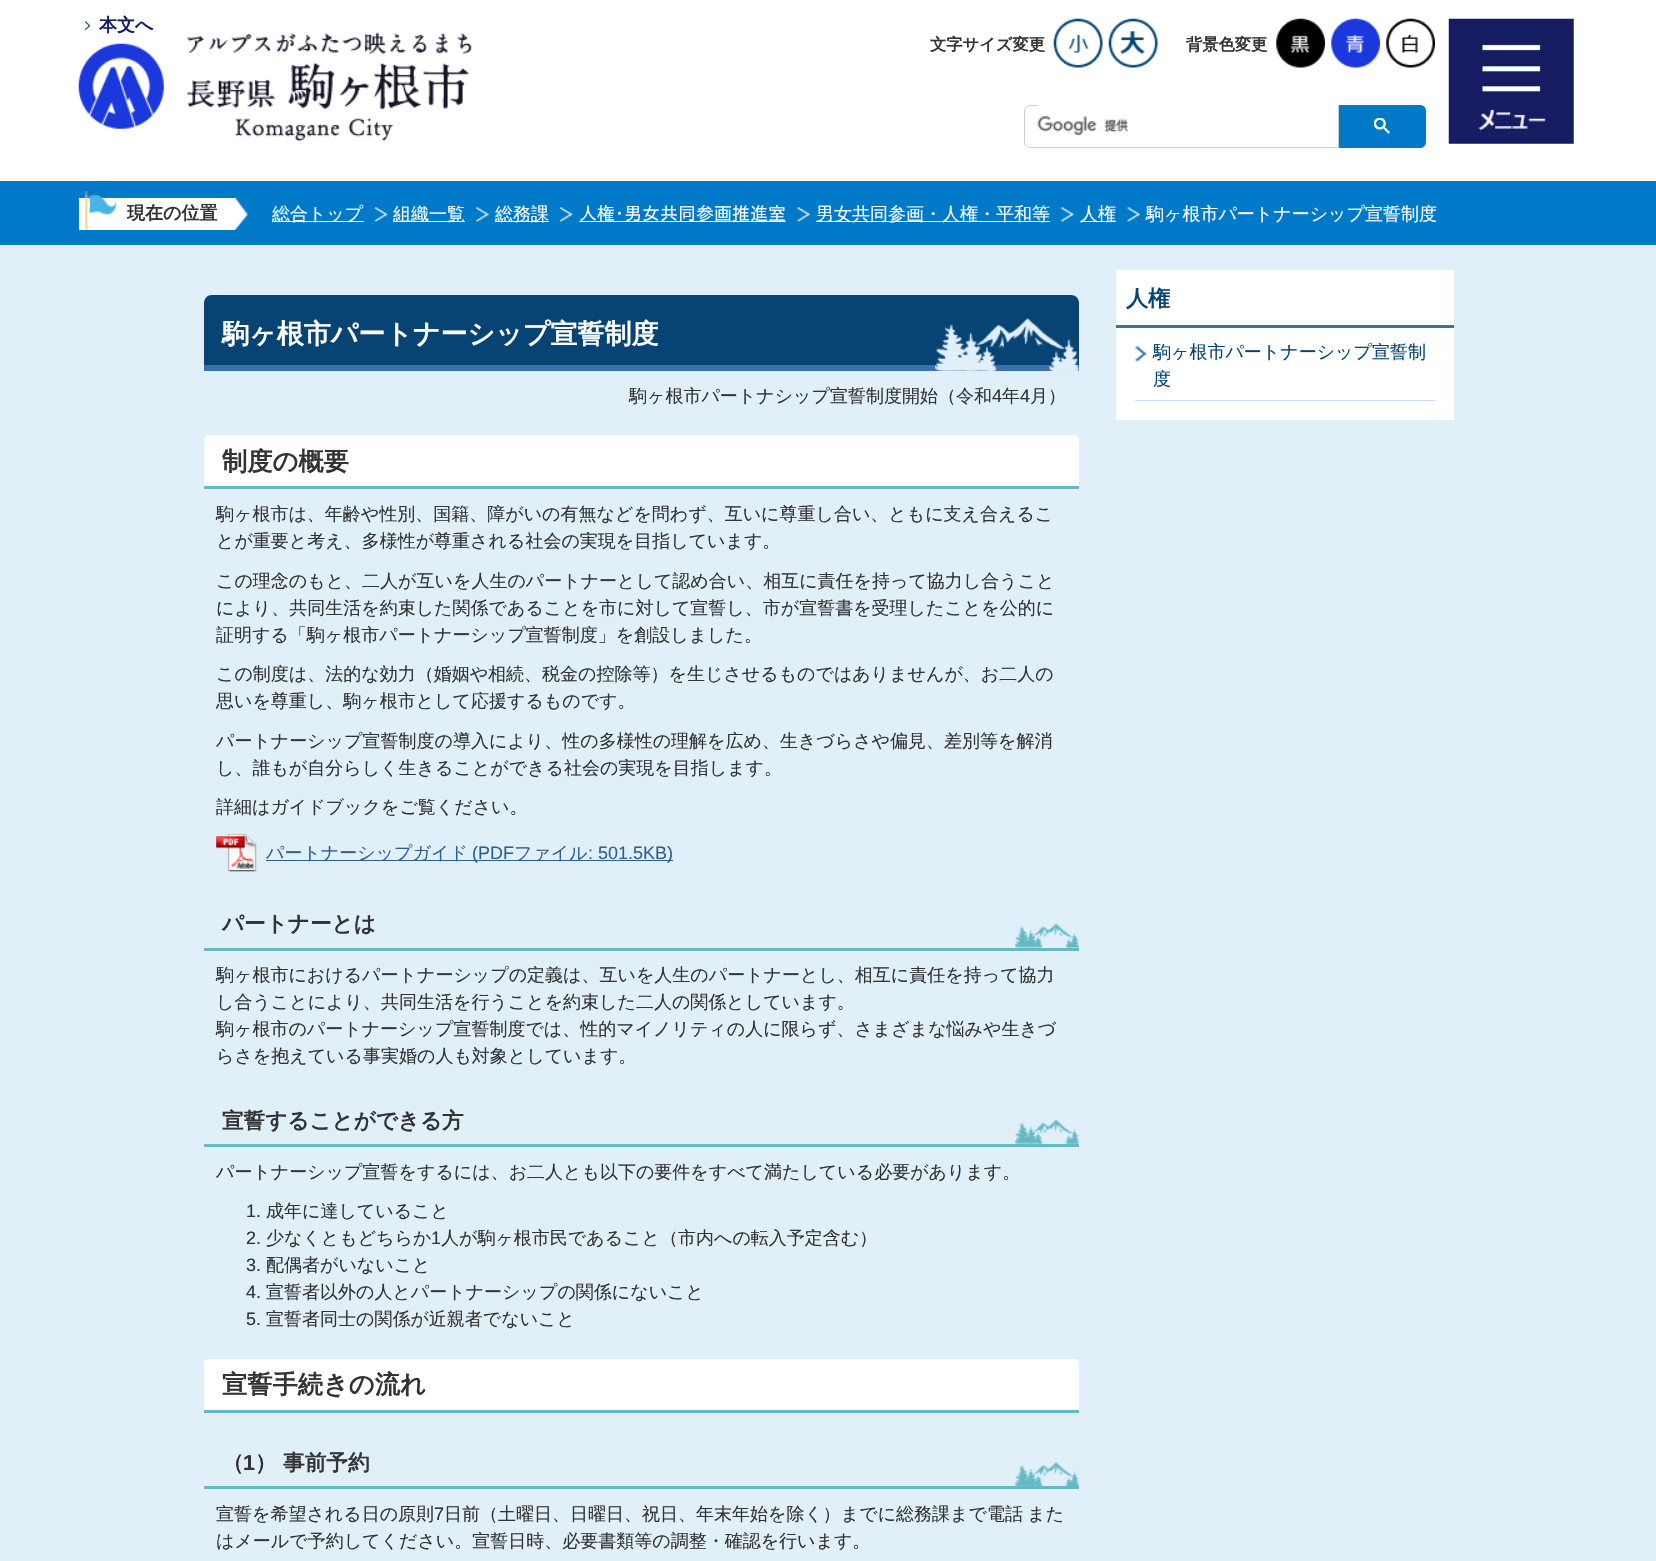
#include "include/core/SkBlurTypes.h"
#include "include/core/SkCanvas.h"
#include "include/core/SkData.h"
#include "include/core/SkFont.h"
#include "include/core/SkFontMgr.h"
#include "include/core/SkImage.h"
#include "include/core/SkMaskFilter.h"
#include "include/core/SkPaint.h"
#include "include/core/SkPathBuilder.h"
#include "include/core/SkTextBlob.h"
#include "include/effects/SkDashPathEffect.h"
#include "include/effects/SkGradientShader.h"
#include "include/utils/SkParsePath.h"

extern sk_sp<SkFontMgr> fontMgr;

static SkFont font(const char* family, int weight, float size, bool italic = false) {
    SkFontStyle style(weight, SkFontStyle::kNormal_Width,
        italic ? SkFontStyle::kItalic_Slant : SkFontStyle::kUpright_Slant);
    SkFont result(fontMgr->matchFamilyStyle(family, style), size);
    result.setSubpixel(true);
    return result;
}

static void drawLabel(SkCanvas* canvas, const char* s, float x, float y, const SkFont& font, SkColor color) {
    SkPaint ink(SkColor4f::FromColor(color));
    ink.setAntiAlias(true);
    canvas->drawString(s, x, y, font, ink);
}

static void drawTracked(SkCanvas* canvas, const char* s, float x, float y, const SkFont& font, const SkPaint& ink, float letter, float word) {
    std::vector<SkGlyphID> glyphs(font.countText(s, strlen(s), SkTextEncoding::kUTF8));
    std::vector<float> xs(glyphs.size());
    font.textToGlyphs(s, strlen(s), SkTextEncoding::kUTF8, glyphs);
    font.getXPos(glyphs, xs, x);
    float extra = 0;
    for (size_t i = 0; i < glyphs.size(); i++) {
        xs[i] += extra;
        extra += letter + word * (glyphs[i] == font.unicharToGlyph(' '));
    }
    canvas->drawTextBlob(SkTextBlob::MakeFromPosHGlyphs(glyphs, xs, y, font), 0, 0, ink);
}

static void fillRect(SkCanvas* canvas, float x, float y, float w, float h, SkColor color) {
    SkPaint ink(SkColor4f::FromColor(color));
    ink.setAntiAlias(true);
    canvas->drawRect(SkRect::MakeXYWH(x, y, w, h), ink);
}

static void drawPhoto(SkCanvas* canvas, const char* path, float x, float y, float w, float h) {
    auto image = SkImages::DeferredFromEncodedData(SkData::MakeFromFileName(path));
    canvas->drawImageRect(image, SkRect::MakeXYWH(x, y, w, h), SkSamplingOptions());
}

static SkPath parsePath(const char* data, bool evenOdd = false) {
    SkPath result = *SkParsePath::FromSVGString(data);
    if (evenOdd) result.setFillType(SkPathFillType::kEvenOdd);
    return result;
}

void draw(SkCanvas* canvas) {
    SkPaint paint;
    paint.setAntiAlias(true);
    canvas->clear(0xFFFFFFFF);
    drawPhoto(canvas, "assets/img1.png", 85, 21, 5, 9);
    SkFont font1 = font("WenQuanYi Zen Hei", 700, 18);
    drawLabel(canvas, "本文へ", 99, 31, font1, 0xFF151C62);
    drawPhoto(canvas, "assets/img2.png", 78, 32, 394, 110);
    SkFont font2 = font("WenQuanYi Zen Hei", 700, 16.25f);
    drawLabel(canvas, "文字サイズ変更", 930, 50, font2, 0xFF333333);
    drawPhoto(canvas, "assets/img3.png", 1053, 18, 50, 50);
    drawPhoto(canvas, "assets/img4.png", 1108, 18, 50, 50);
    drawLabel(canvas, "背景色変更", 1186, 50, font2, 0xFF333333);
    drawPhoto(canvas, "assets/img5.png", 1276, 18, 49, 50);
    drawPhoto(canvas, "assets/img6.png", 1331, 18, 49, 50);
    drawPhoto(canvas, "assets/img7.png", 1386, 18, 49, 50);
    drawPhoto(canvas, "assets/img8.png", 1448, 18, 126, 126);
    paint.setStroke(true);
    paint.setStrokeWidth(1);
    paint.setColor(0xFFCCCCCC);
    canvas->drawPath(parsePath("M1030 105.5H1338.5V147.5H1030C1027 147.5 1024.5 145 1024.5 142V111C1024.5 108 1027 105.5 1030 105.5Z"), paint);
    fillRect(canvas, 1038, 105, 300, 1, 0xFFFFFFFF);
    drawPhoto(canvas, "assets/img9.png", 1037, 116, 92, 19);
    paint.setStroke(false);
    paint.setColor(0xFF007AC8);
    canvas->drawPath(parsePath("M1339 105H1420C1423.5 105 1426 107.5 1426 111V142C1426 145.5 1423.5 148 1420 148H1339Z"), paint);
    drawPhoto(canvas, "assets/img10.png", 1374, 118, 16, 16);
    fillRect(canvas, 0, 181, 1656, 64, 0xFF007AC8);
    fillRect(canvas, 79, 198, 156, 32, 0xFFFFFFFF);
    drawPhoto(canvas, "assets/img11.png", 85, 191, 32, 39);
    drawLabel(canvas, "現在の位置", 127, 219, font1, 0xFF333333);
    drawPhoto(canvas, "assets/img12.png", 235, 197, 13, 33);
    fillRect(canvas, 273, 221, 91, 1, 0xFFFFFFFF);
    SkFont font3 = font("WenQuanYi Zen Hei", 500, 18);
    drawLabel(canvas, "総合トップ", 272, 220, font3, 0xFFFFFFFF);
    drawPhoto(canvas, "assets/img13.png", 375, 207, 13, 15);
    fillRect(canvas, 394, 221, 71, 1, 0xFFFFFFFF);
    drawLabel(canvas, "組織一覧", 393, 220, font3, 0xFFFFFFFF);
    drawPhoto(canvas, "assets/img14.png", 476, 207, 13, 15);
    fillRect(canvas, 495, 221, 54, 1, 0xFFFFFFFF);
    drawLabel(canvas, "総務課", 495, 220, font3, 0xFFFFFFFF);
    drawPhoto(canvas, "assets/img15.png", 560, 207, 13, 15);
    fillRect(canvas, 579, 221, 207, 1, 0xFFFFFFFF);
    SkFont font4 = font("IPAPGothic", 400, 18);
    drawLabel(canvas, "人権･男女共同参画推進室", 579, 220, font4, 0xFFFFFFFF);
    drawPhoto(canvas, "assets/img16.png", 797, 207, 13, 15);
    fillRect(canvas, 816, 221, 234, 1, 0xFFFFFFFF);
    drawLabel(canvas, "男女共同参画・人権・平和等", 816, 220, font3, 0xFFFFFFFF);
    drawPhoto(canvas, "assets/img14.png", 1061, 207, 13, 15);
    fillRect(canvas, 1080, 221, 36, 1, 0xFFFFFFFF);
    drawLabel(canvas, "人権", 1080, 220, font3, 0xFFFFFFFF);
    drawPhoto(canvas, "assets/img17.png", 1127, 207, 13, 15);
    drawLabel(canvas, "駒ヶ根市パートナーシップ宣誓制度", 1146, 220, font3, 0xFFFFFFFF);
    fillRect(canvas, 0, 245, 1656, 1316, 0xFFE1EFF9);
    paint.setColor(0xFF074474);
    canvas->drawPath(parsePath("M212 295H1071C1075.5 295 1079 298.5 1079 303V371H204V303C204 298.5 207.5 295 212 295Z"), paint);
    SkFont font5 = font("WenQuanYi Zen Hei", 700, 27);
    drawLabel(canvas, "駒ヶ根市パートナーシップ宣誓制度", 222, 343, font5, 0xFFFFFFFF);
    fillRect(canvas, 204, 365, 875, 6, 0xFF3971A9);
    drawPhoto(canvas, "assets/img18.png", 935, 318, 144, 53);
    drawLabel(canvas, "駒ヶ根市パートナシップ宣誓制度開始（令和", 629, 402, font3, 0xFF333333);
    SkFont font6 = font("Liberation Sans", 400, 18);
    drawLabel(canvas, "4", 992, 402, font6, 0xFF333333);
    drawLabel(canvas, "年", 1002, 402, font3, 0xFF333333);
    drawLabel(canvas, "4", 1020, 402, font6, 0xFF333333);
    drawLabel(canvas, "月）", 1030, 402, font3, 0xFF333333);
    paint.setColor(0xFFFFFFFF);
    canvas->drawPath(parsePath("M209 435H1074C1077 435 1079 437 1079 440V489H204V440C204 437 206 435 209 435Z"), paint);
    fillRect(canvas, 204, 486, 875, 3, 0xFF64B9C4);
    SkFont font7 = font("WenQuanYi Zen Hei", 700, 25.25f);
    drawLabel(canvas, "制度の概要", 222, 470, font7, 0xFF333333);
    drawLabel(canvas, "駒ヶ根市は、年齢や性別、国籍、障がいの有無などを問わず、互いに尊重し合い、ともに支え合えるこ", 216, 520, font3, 0xFF333333);
    drawLabel(canvas, "とが重要と考え、多様性が尊重される社会の実現を目指しています。", 216, 547, font3, 0xFF333333);
    drawLabel(canvas, "この理念のもと、二人が互いを人生のパートナーとして認め合い、相互に責任を持って協力し合うこと", 216, 587, font3, 0xFF333333);
    drawLabel(canvas, "により、共同生活を約束した関係であることを市に対して宣誓し、市が宣誓書を受理したことを公的に", 216, 614, font3, 0xFF333333);
    drawLabel(canvas, "証明する「駒ヶ根市パートナーシップ宣誓制度」を創設しました。", 216, 641, font3, 0xFF333333);
    drawLabel(canvas, "この制度は、法的な効力（婚姻や相続、税金の控除等）を生じさせるものではありませんが、お二人の", 216, 680, font3, 0xFF333333);
    drawLabel(canvas, "思いを尊重し、駒ヶ根市として応援するものです。", 216, 707, font3, 0xFF333333);
    drawLabel(canvas, "パートナーシップ宣誓制度の導入により、性の多様性の理解を広め、生きづらさや偏見、差別等を解消", 216, 747, font3, 0xFF333333);
    drawLabel(canvas, "し、誰もが自分らしく生きることができる社会の実現を目指します。", 216, 774, font3, 0xFF333333);
    drawLabel(canvas, "詳細はガイドブックをご覧ください。", 216, 813, font3, 0xFF333333);
    drawPhoto(canvas, "assets/img19.png", 216, 833, 41, 39);
    fillRect(canvas, 266, 860, 407, 1, 0xFF2D5F92);
    drawLabel(canvas, "パートナーシップガイド", 266, 859, font3, 0xFF2D5F92);
    drawLabel(canvas, "(PDF", 472, 859, font6, 0xFF2D5F92);
    drawLabel(canvas, "ファイル", 514, 859, font3, 0xFF2D5F92);
    drawLabel(canvas, ": 501.5KB)", 588, 859, font6, 0xFF2D5F92);
    drawPhoto(canvas, "assets/img20.png", 1015, 923, 64, 25);
    fillRect(canvas, 204, 948, 875, 3, 0xFF64B9C4);
    SkFont font8 = font("WenQuanYi Zen Hei", 700, 21.6f);
    drawLabel(canvas, "パートナーとは", 222, 931, font8, 0xFF333333);
    drawLabel(canvas, "駒ヶ根市におけるパートナーシップの定義は、互いを人生のパートナーとし、相互に責任を持って協力", 216, 981, font3, 0xFF333333);
    drawLabel(canvas, "し合うことにより、共同生活を行うことを約束した二人の関係としています。", 216, 1008, font3, 0xFF333333);
    drawLabel(canvas, "駒ヶ根市のパートナーシップ宣誓制度では、性的マイノリティの人に限らず、さまざまな悩みや生きづ", 216, 1035, font3, 0xFF333333);
    drawLabel(canvas, "らさを抱えている事実婚の人も対象としています。", 216, 1062, font3, 0xFF333333);
    drawPhoto(canvas, "assets/img21.png", 1015, 1120, 64, 24);
    fillRect(canvas, 204, 1144, 875, 3, 0xFF64B9C4);
    drawLabel(canvas, "宣誓することができる方", 222, 1128, font8, 0xFF333333);
    drawLabel(canvas, "パートナーシップ宣誓をするには、お二人とも以下の要件をすべて満たしている必要があります。", 216, 1178, font3, 0xFF333333);
    drawLabel(canvas, "1.", 246, 1217, font6, 0xFF333333);
    drawLabel(canvas, "成年に達していること", 266, 1217, font3, 0xFF333333);
    drawLabel(canvas, "2.", 246, 1244, font6, 0xFF333333);
    drawLabel(canvas, "少なくともどちらか", 266, 1244, font3, 0xFF333333);
    drawLabel(canvas, "1", 431, 1244, font6, 0xFF333333);
    drawLabel(canvas, "人が駒ヶ根市民であること（市内への転入予定含む）", 441, 1244, font3, 0xFF333333);
    drawLabel(canvas, "3.", 246, 1271, font6, 0xFF333333);
    drawLabel(canvas, "配偶者がいないこと", 266, 1271, font3, 0xFF333333);
    drawLabel(canvas, "4.", 246, 1298, font6, 0xFF333333);
    drawLabel(canvas, "宣誓者以外の人とパートナーシップの関係にないこと", 266, 1298, font3, 0xFF333333);
    drawLabel(canvas, "5.", 246, 1325, font6, 0xFF333333);
    drawLabel(canvas, "宣誓者同士の関係が近親者でないこと", 266, 1325, font3, 0xFF333333);
    canvas->drawPath(parsePath("M209 1359H1074C1077 1359 1079 1361 1079 1364V1413H204V1364C204 1361 206 1359 209 1359Z"), paint);
    fillRect(canvas, 204, 1410, 875, 3, 0xFF64B9C4);
    drawLabel(canvas, "宣誓手続きの流れ", 222, 1393, font7, 0xFF333333);
    drawPhoto(canvas, "assets/img22.png", 1015, 1462, 64, 24);
    fillRect(canvas, 204, 1486, 875, 3, 0xFF64B9C4);
    drawLabel(canvas, "（", 222, 1470, font8, 0xFF333333);
    SkFont font9 = font("Liberation Sans", 700, 21.6f);
    drawLabel(canvas, "1", 243, 1470, font9, 0xFF333333);
    drawLabel(canvas, "） 事前予約", 255, 1470, font8, 0xFF333333);
    drawLabel(canvas, "宣誓を希望される日の原則", 216, 1520, font3, 0xFF333333);
    drawLabel(canvas, "7", 434, 1520, font6, 0xFF333333);
    paint.setColor(0xFF333333);
    drawTracked(canvas, "日前（土曜日、日曜日、祝日、年末年始を除く）までに総務課まで電話 また", 444, 1520, font3, paint, 0, -1);
    drawLabel(canvas, "はメールで予約してください。宣誓日時、必要書類等の調整・確認を行います。", 216, 1547, font3, 0xFF333333);
    fillRect(canvas, 1116, 270, 338, 150, 0xFFFFFFFF);
    fillRect(canvas, 1116, 325, 338, 3, 0xFF3971A9);
    SkFont font10 = font("WenQuanYi Zen Hei", 700, 22);
    drawLabel(canvas, "人権", 1126, 306, font10, 0xFF074474);
    drawPhoto(canvas, "assets/img23.png", 1135, 346, 12, 16);
    fillRect(canvas, 1135, 400, 300, 1, 0xFFC7DEF9);
    drawLabel(canvas, "駒ヶ根市パートナーシップ宣誓制", 1153, 358, font3, 0xFF074474);
    drawLabel(canvas, "度", 1153, 385, font3, 0xFF074474);
}
